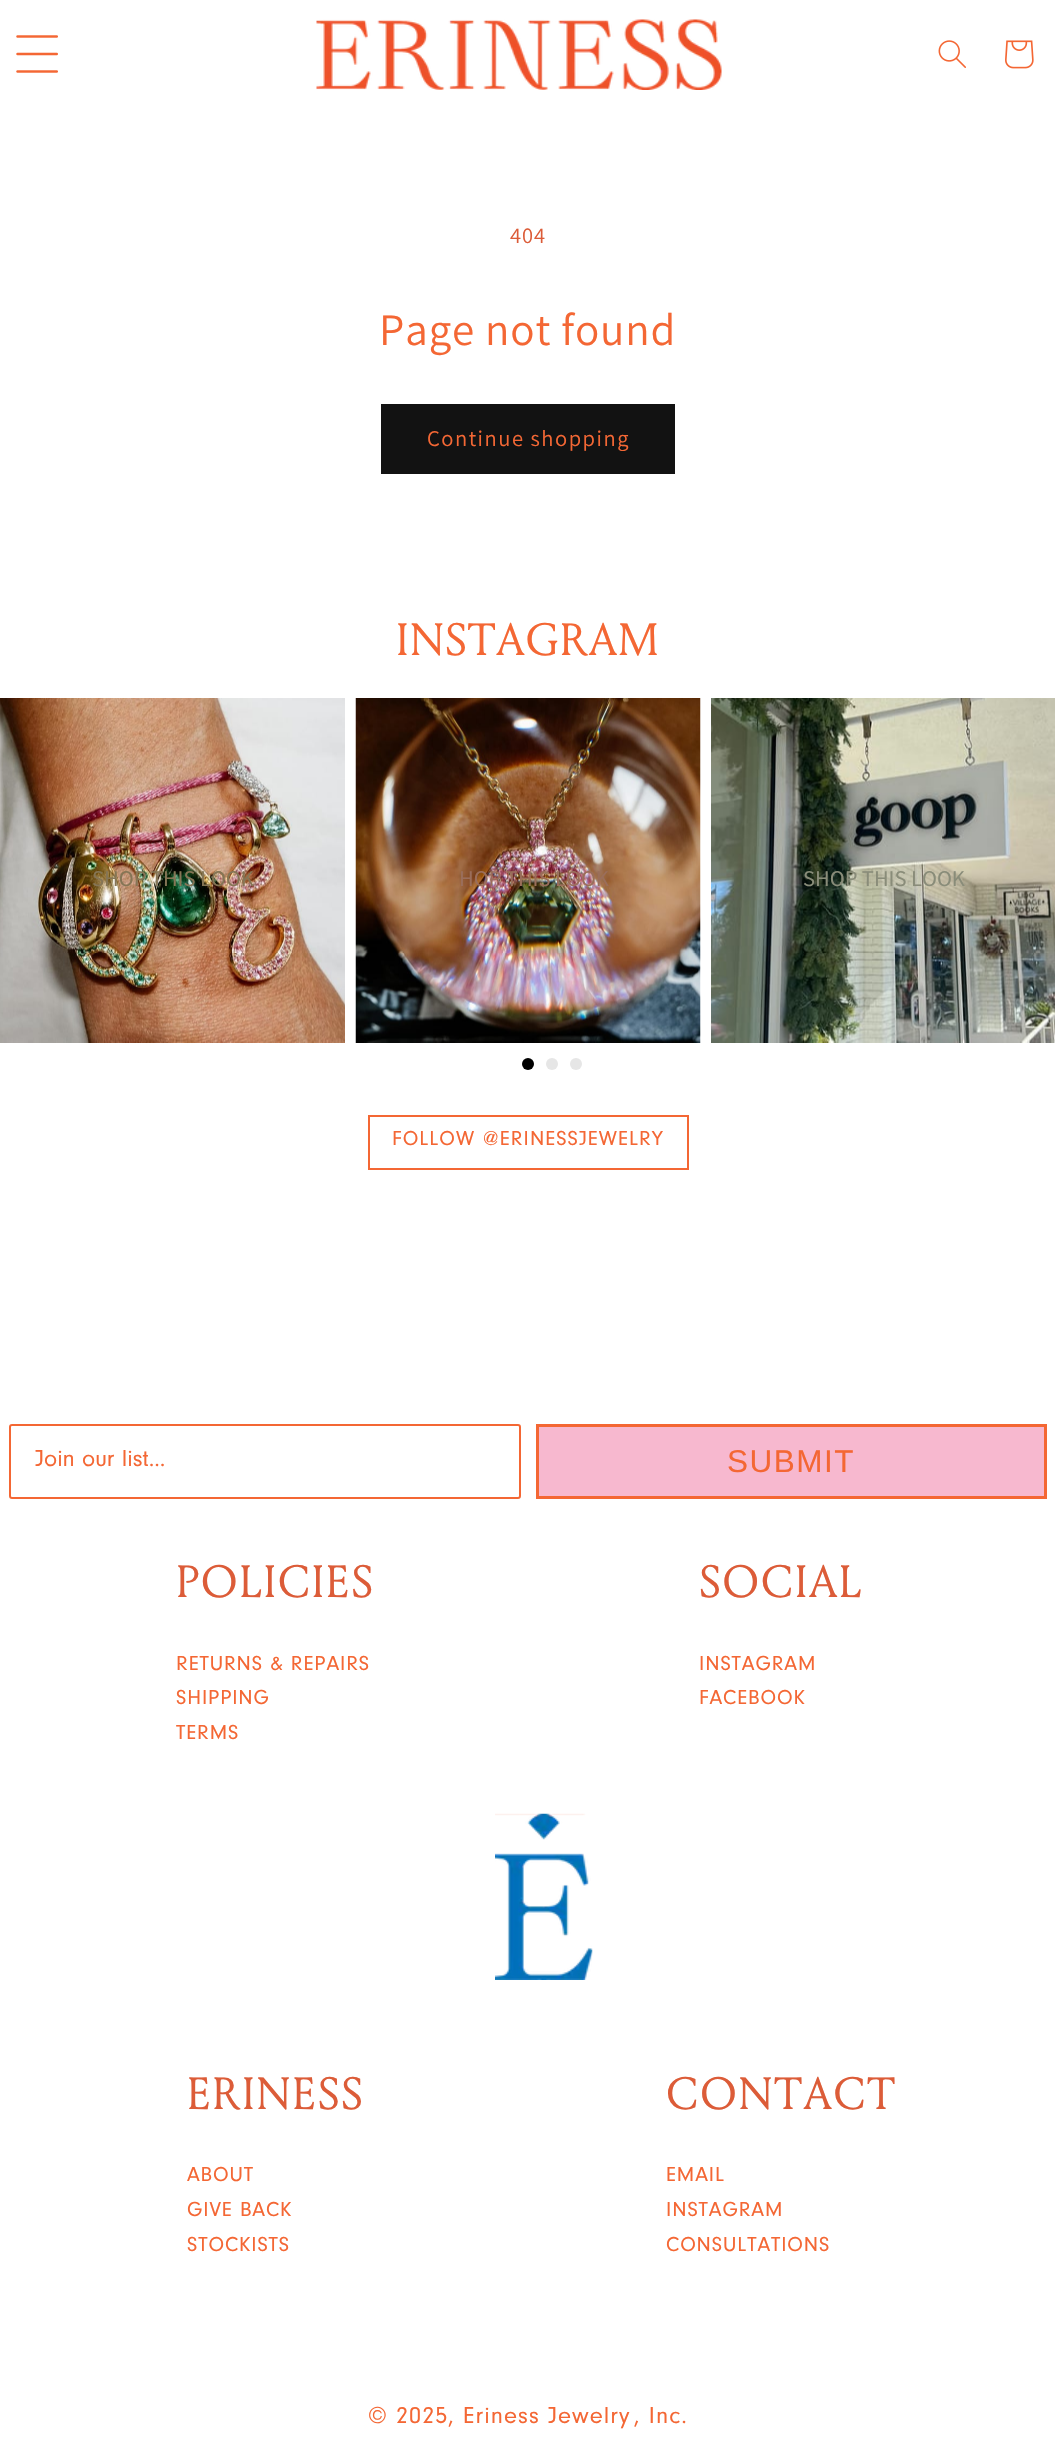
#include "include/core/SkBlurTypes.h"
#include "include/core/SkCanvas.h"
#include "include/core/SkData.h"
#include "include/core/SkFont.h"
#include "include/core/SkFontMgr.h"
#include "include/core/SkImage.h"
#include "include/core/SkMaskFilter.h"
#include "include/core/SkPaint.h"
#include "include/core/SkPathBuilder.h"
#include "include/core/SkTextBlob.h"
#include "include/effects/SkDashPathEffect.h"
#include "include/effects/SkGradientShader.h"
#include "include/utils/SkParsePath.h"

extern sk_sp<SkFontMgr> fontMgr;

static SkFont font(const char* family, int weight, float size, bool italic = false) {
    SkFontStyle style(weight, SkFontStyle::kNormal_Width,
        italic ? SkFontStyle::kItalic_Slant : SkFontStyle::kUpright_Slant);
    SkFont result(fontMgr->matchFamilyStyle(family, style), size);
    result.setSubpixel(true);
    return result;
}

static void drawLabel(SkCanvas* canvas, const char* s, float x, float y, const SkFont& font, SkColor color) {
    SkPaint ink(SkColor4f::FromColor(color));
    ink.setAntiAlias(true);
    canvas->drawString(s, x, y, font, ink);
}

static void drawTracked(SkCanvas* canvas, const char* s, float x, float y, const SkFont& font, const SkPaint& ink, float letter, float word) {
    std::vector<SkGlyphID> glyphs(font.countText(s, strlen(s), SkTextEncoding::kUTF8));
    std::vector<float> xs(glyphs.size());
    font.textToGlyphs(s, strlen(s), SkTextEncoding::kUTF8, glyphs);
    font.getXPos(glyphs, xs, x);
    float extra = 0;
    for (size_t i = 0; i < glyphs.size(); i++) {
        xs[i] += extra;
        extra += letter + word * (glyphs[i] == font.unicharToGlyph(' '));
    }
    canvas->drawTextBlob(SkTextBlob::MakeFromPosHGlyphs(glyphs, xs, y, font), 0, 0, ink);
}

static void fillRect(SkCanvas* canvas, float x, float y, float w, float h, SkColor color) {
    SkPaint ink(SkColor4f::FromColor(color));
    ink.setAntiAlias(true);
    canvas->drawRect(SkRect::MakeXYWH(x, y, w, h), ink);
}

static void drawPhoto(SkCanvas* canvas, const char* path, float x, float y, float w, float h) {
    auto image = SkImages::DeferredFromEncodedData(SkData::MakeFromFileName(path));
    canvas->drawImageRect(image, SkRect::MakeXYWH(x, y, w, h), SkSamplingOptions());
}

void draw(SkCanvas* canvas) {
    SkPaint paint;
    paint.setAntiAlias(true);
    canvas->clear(0xFFFFFFFF);
    drawPhoto(canvas, "assets/img1.png", 16, 35, 42, 38);
    drawPhoto(canvas, "assets/img2.png", 316, 19, 406, 71);
    drawPhoto(canvas, "assets/img3.png", 938, 40, 28, 28);
    drawPhoto(canvas, "assets/img4.png", 1005, 40, 29, 29);
    SkFont font1 = font("Assistant", 400, 22.5f);
    paint.setColor(0xFFDC5C38);
    drawTracked(canvas, "404", 510, 243, font1, paint, 0.9f, 0);
    SkFont font2 = font("Assistant", 400, 45);
    paint.setColor(0xFFF46734);
    drawTracked(canvas, "Page not found", 379, 345, font2, paint, 0.9f, 0);
    fillRect(canvas, 381, 404, 294, 70, 0xFF121212);
    drawTracked(canvas, "Continue shopping", 427, 446, font1, paint, 1.5f, 0);
    SkFont font3 = font("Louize", 400, 45);
    drawTracked(canvas, "INSTAGRAM", 396, 655, font3, paint, 0.9f, 0);
    drawPhoto(canvas, "assets/img5.png", 0, 698, 345, 345);
    SkFont font4 = font("Source Sans Pro", 400, 22.5f);
    drawLabel(canvas, "SHOP THIS LOOK", 92, 886, font4, 0xFF857555);
    drawPhoto(canvas, "assets/img6.png", 355, 698, 346, 345);
    drawLabel(canvas, "HOP THIS LOOK", 459, 886, font4, 0xFF9A6E5B);
    drawPhoto(canvas, "assets/img7.png", 711, 698, 344, 345);
    drawLabel(canvas, "SHOP THIS LOOK", 803, 886, font4, 0xFF898C79);
    paint.setColor(0xFF000000);
    canvas->drawCircle(528, 1064, 6, paint);
    paint.setColor(0xFFE6E6E6);
    canvas->drawCircle(552, 1064, 6, paint);
    canvas->drawCircle(576, 1064, 6, paint);
    paint.setStroke(true);
    paint.setStrokeWidth(2);
    paint.setColor(0xFFF46734);
    canvas->drawRect(SkRect::MakeXYWH(369, 1116, 319, 53), paint);
    SkFont font5 = font("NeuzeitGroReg", 400, 21);
    paint.setStroke(false);
    drawTracked(canvas, "FOLLOW @ERINESSJEWELRY", 392, 1145, font5, paint, 1.05f, 0);
    paint.setStroke(true);
    canvas->drawRoundRect(SkRect::MakeXYWH(10, 1425, 510, 73), 2, 2, paint);
    SkFont font6 = font("NeuzeitGroReg", 400, 24);
    drawLabel(canvas, "Join our list...", 35, 1466, font6, 0xFFF46734);
    paint.setStroke(false);
    paint.setColor(0xFFF7B8CF);
    canvas->drawRect(SkRect::MakeXYWH(537.5f, 1425.5f, 508, 72), paint);
    paint.setStroke(true);
    paint.setStrokeWidth(3);
    paint.setColor(0xFFF46734);
    canvas->drawRect(SkRect::MakeXYWH(537.5f, 1425.5f, 508, 72), paint);
    SkFont font7 = font("Liberation Sans", 400, 31.5f);
    paint.setStroke(false);
    drawTracked(canvas, "SUBMIT", 727, 1472, font7, paint, 1.5f, 0);
    paint.setColor(0xFFDC5C38);
    drawTracked(canvas, "POLICIES", 176, 1597, font3, paint, 1.5f, 0);
    paint.setColor(0xFFF46734);
    drawTracked(canvas, "RETURNS & REPAIRS", 176, 1670, font5, paint, 0.9f, 0);
    drawTracked(canvas, "SHIPPING", 176, 1704, font5, paint, 0.9f, 0);
    drawTracked(canvas, "TERMS", 176, 1739, font5, paint, 0.9f, 0);
    paint.setColor(0xFFDC5C38);
    drawTracked(canvas, "SOCIAL", 699, 1597, font3, paint, 1.5f, 0);
    paint.setColor(0xFFF46734);
    drawTracked(canvas, "INSTAGRAM", 699, 1670, font5, paint, 0.9f, 0);
    drawTracked(canvas, "FACEBOOK", 699, 1704, font5, paint, 0.9f, 0);
    drawPhoto(canvas, "assets/img8.png", 495, 1813, 98, 167);
    paint.setColor(0xFFDC5C38);
    drawTracked(canvas, "ERINESS", 187, 2109, font3, paint, 1.5f, 0);
    paint.setColor(0xFFF46734);
    drawTracked(canvas, "ABOUT", 187, 2181, font5, paint, 0.9f, 0);
    drawTracked(canvas, "GIVE BACK", 187, 2216, font5, paint, 0.9f, 0);
    drawTracked(canvas, "STOCKISTS", 187, 2251, font5, paint, 0.9f, 0);
    paint.setColor(0xFFDC5C38);
    drawTracked(canvas, "CONTACT", 666, 2109, font3, paint, 1.5f, 0);
    paint.setColor(0xFFF46734);
    drawTracked(canvas, "EMAIL", 666, 2181, font5, paint, 0.9f, 0);
    drawTracked(canvas, "INSTAGRAM", 666, 2216, font5, paint, 0.9f, 0);
    drawTracked(canvas, "CONSULTATIONS", 666, 2251, font5, paint, 0.9f, 0);
    drawTracked(canvas, "© 2025, Eriness Jewelry", 368, 2423, font6, paint, 1.05f, 0);
    drawTracked(canvas, ", Inc.", 634, 2423, font6, paint, 1.05f, 0);
}
